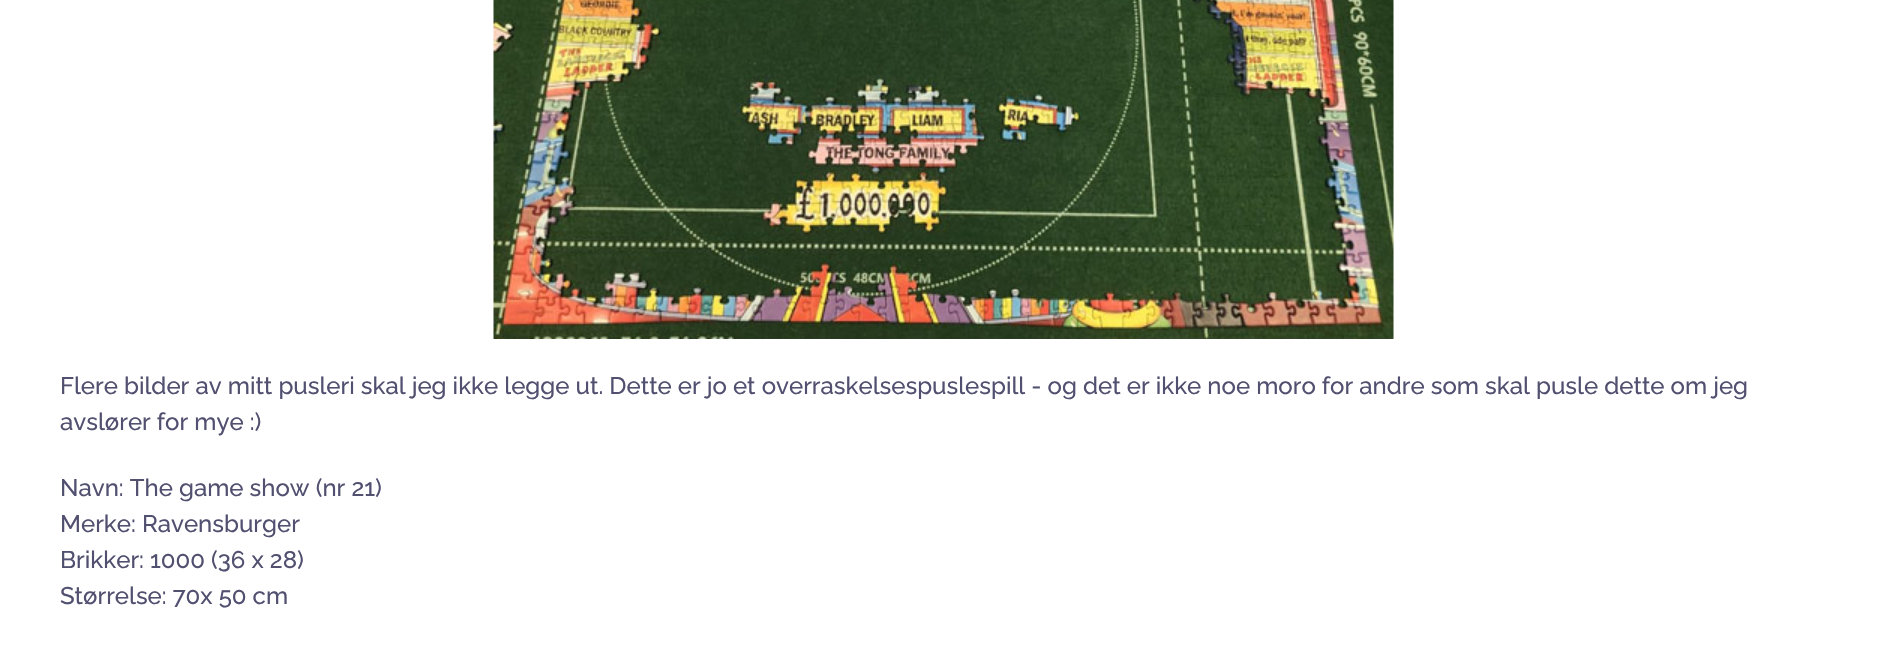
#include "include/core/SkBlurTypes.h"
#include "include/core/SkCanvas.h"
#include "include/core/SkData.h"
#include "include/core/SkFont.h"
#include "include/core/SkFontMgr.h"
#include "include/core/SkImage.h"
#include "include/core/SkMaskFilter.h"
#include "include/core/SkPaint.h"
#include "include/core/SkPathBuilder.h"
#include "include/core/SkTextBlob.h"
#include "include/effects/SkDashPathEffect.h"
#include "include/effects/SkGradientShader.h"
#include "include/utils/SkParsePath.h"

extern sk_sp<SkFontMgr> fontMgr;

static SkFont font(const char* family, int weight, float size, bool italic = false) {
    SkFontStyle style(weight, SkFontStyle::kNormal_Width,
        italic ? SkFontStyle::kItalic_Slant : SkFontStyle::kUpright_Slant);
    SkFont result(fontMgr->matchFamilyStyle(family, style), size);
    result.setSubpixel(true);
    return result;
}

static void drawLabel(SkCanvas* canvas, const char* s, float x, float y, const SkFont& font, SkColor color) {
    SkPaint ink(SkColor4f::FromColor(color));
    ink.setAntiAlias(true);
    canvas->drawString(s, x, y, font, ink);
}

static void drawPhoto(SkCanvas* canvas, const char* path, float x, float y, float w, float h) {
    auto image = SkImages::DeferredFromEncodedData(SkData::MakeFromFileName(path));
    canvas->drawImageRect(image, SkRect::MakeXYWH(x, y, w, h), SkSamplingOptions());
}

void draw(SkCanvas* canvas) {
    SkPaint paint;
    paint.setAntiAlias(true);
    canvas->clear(0xFFFFFFFF);
    drawPhoto(canvas, "assets/img1.png", 493, 0, 901, 339);
    SkFont font1 = font("Raleway", 100, 24);
    drawLabel(canvas, "Flere bilder av mitt pusleri skal jeg ikke legge ut. Dette er jo et overraskelsespuslespill - og det er ikke noe moro for andre som skal pusle dette om jeg", 60, 394, font1, 0xFF515070);
    drawLabel(canvas, "avslører for mye :)", 60, 430, font1, 0xFF515070);
    drawLabel(canvas, "Navn: The game show (nr 21)", 60, 496, font1, 0xFF515070);
    drawLabel(canvas, "Merke: Ravensburger", 60, 532, font1, 0xFF515070);
    drawLabel(canvas, "Brikker: 1000 (36 x 28)", 60, 568, font1, 0xFF515070);
    drawLabel(canvas, "Størrelse: 70x 50 cm", 60, 604, font1, 0xFF515070);
}
